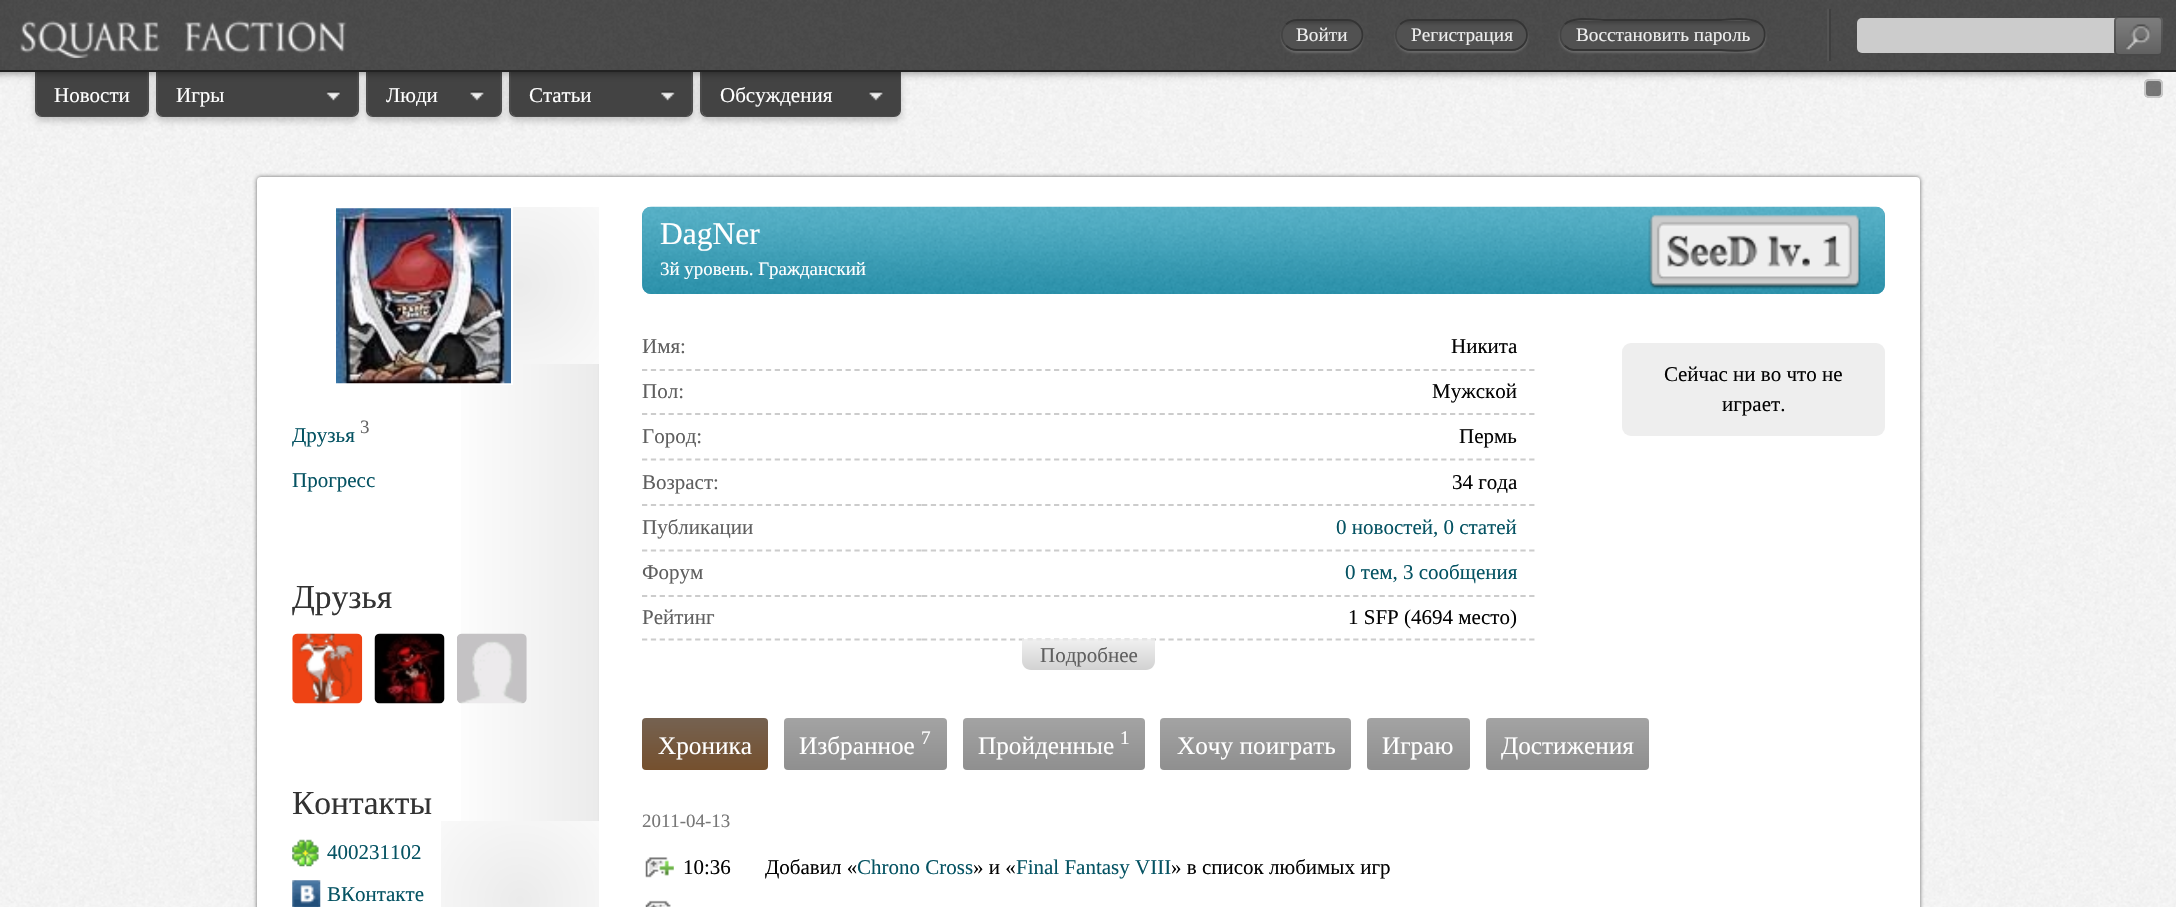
#include "include/core/SkBlurTypes.h"
#include "include/core/SkCanvas.h"
#include "include/core/SkData.h"
#include "include/core/SkFont.h"
#include "include/core/SkFontMgr.h"
#include "include/core/SkImage.h"
#include "include/core/SkMaskFilter.h"
#include "include/core/SkPaint.h"
#include "include/core/SkPathBuilder.h"
#include "include/core/SkTextBlob.h"
#include "include/effects/SkDashPathEffect.h"
#include "include/effects/SkGradientShader.h"
#include "include/utils/SkParsePath.h"

extern sk_sp<SkFontMgr> fontMgr;

static SkFont font(const char* family, int weight, float size, bool italic = false) {
    SkFontStyle style(weight, SkFontStyle::kNormal_Width,
        italic ? SkFontStyle::kItalic_Slant : SkFontStyle::kUpright_Slant);
    SkFont result(fontMgr->matchFamilyStyle(family, style), size);
    result.setSubpixel(true);
    return result;
}

static void drawLabel(SkCanvas* canvas, const char* s, float x, float y, const SkFont& font, SkColor color) {
    SkPaint ink(SkColor4f::FromColor(color));
    ink.setAntiAlias(true);
    canvas->drawString(s, x, y, font, ink);
}

static void fillRect(SkCanvas* canvas, float x, float y, float w, float h, SkColor color) {
    SkPaint ink(SkColor4f::FromColor(color));
    ink.setAntiAlias(true);
    canvas->drawRect(SkRect::MakeXYWH(x, y, w, h), ink);
}

static void fillRRect(SkCanvas* canvas, float x, float y, float w, float h, float radius, SkColor color) {
    SkPaint ink(SkColor4f::FromColor(color));
    ink.setAntiAlias(true);
    canvas->drawRoundRect(SkRect::MakeXYWH(x, y, w, h), radius, radius, ink);
}

static void drawPhoto(SkCanvas* canvas, const char* path, float x, float y, float w, float h) {
    auto image = SkImages::DeferredFromEncodedData(SkData::MakeFromFileName(path));
    canvas->drawImageRect(image, SkRect::MakeXYWH(x, y, w, h), SkSamplingOptions());
}

static SkPath parsePath(const char* data, bool evenOdd = false) {
    SkPath result = *SkParsePath::FromSVGString(data);
    if (evenOdd) result.setFillType(SkPathFillType::kEvenOdd);
    return result;
}

void draw(SkCanvas* canvas) {
    SkPaint paint;
    paint.setAntiAlias(true);
    canvas->clear(0xFFFFFFFF);
    drawPhoto(canvas, "assets/img1.png", 0, 72, 2176, 835);
    paint.setColor(0x33000000);
    paint.setMaskFilter(SkMaskFilter::MakeBlur(kNormal_SkBlurStyle, 3.5f));
    canvas->drawRoundRect(SkRect::MakeXYWH(35, 75, 114, 46), 7, 7, paint);
    paint.setMaskFilter(nullptr);
    paint.setColor(0xFF434343);
    canvas->drawPath(parsePath("M37 72H147V111C147 114 145 116 142 116H42C39 116 37 114 37 111Z"), paint);
    paint.setColor(0xFF4B4B4B);
    canvas->drawPath(parsePath("M35 72H149V110C149 114 146 117 142 117H42C38 117 35 114 35 110ZM37 72H147V110C147 113 145 116 142 116H42C39 116 37 113 37 110Z", true), paint);
    paint.setColor(0x33000000);
    paint.setMaskFilter(SkMaskFilter::MakeBlur(kNormal_SkBlurStyle, 3.5f));
    canvas->drawRoundRect(SkRect::MakeXYWH(156, 75, 203, 46), 7, 7, paint);
    paint.setMaskFilter(nullptr);
    paint.setColor(0xFF434343);
    canvas->drawPath(parsePath("M158 72H357V111C357 114 355 116 352 116H163C160 116 158 114 158 111Z"), paint);
    paint.setColor(0xFF4B4B4B);
    canvas->drawPath(parsePath("M156 72H359V110C359 114 356 117 352 117H163C159 117 156 114 156 110ZM158 72H357V110C357 113 355 116 352 116H163C160 116 158 113 158 110Z", true), paint);
    paint.setColor(0x33000000);
    paint.setMaskFilter(SkMaskFilter::MakeBlur(kNormal_SkBlurStyle, 3.5f));
    canvas->drawRoundRect(SkRect::MakeXYWH(366, 75, 136, 46), 7, 7, paint);
    paint.setMaskFilter(nullptr);
    paint.setColor(0xFF434343);
    canvas->drawPath(parsePath("M368 72H501V111C501 114 499 116 496 116H373C370 116 368 114 368 111Z"), paint);
    paint.setColor(0xFF4B4B4B);
    canvas->drawPath(parsePath("M366 72H502V110C502 114 499 117 495 117H373C369 117 366 114 366 110ZM368 72H500V110C500 113 498 116 495 116H373C370 116 368 113 368 110Z", true), paint);
    paint.setColor(0x33000000);
    paint.setMaskFilter(SkMaskFilter::MakeBlur(kNormal_SkBlurStyle, 3.5f));
    canvas->drawRoundRect(SkRect::MakeXYWH(509, 75, 184, 46), 7, 7, paint);
    paint.setMaskFilter(nullptr);
    paint.setColor(0xFF434343);
    canvas->drawPath(parsePath("M511 72H691V111C691 114 689 116 686 116H516C513 116 511 114 511 111Z"), paint);
    paint.setColor(0xFF4B4B4B);
    canvas->drawPath(parsePath("M509 72H693V110C693 114 690 117 686 117H516C512 117 509 114 509 110ZM511 72H691V110C691 113 689 116 686 116H516C513 116 511 113 511 110Z", true), paint);
    paint.setColor(0x33000000);
    paint.setMaskFilter(SkMaskFilter::MakeBlur(kNormal_SkBlurStyle, 3.5f));
    canvas->drawRoundRect(SkRect::MakeXYWH(700, 75, 201, 46), 7, 7, paint);
    paint.setMaskFilter(nullptr);
    paint.setColor(0xFF434343);
    canvas->drawPath(parsePath("M702 72H900V111C900 114 898 116 895 116H707C704 116 702 114 702 111Z"), paint);
    paint.setColor(0xFF4B4B4B);
    canvas->drawPath(parsePath("M700 72H901V110C901 114 898 117 894 117H707C703 117 700 114 700 110ZM702 72H900V110C900 113 897 116 894 116H707C704 116 702 113 702 110Z", true), paint);
    fillRRect(canvas, 2144, 79, 19, 19, 5, 0x99222222);
    paint.setStroke(true);
    paint.setStrokeWidth(2);
    paint.setColor(0x99FFFFFF);
    canvas->drawRoundRect(SkRect::MakeXYWH(2145, 80, 17, 17), 4, 4, paint);
    paint.setStroke(false);
    paint.setColor(0x80000000);
    paint.setMaskFilter(SkMaskFilter::MakeBlur(kNormal_SkBlurStyle, 4.5f));
    canvas->drawRect(SkRect::MakeXYWH(-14, 0, 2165, 72), paint);
    paint.setMaskFilter(nullptr);
    drawPhoto(canvas, "assets/img2.png", 0, 0, 2176, 70);
    fillRect(canvas, 0, 70, 2176, 2, 0xFF222222);
    drawPhoto(canvas, "assets/img3.png", 20, 20, 327, 38);
    paint.setColor(0xFF676767);
    paint.setMaskFilter(SkMaskFilter::MakeBlur(kNormal_SkBlurStyle, 1));
    canvas->drawRoundRect(SkRect::MakeXYWH(1281, 21, 82, 32), 16, 16, paint);
    paint.setMaskFilter(nullptr);
    drawPhoto(canvas, "assets/img4.png", 1281, 21, 82, 30);
    paint.setMaskFilter(SkMaskFilter::MakeBlur(kNormal_SkBlurStyle, 1));
    canvas->drawRoundRect(SkRect::MakeXYWH(1395, 21, 133, 32), 16, 16, paint);
    paint.setMaskFilter(nullptr);
    drawPhoto(canvas, "assets/img5.png", 1395, 21, 132, 30);
    paint.setMaskFilter(SkMaskFilter::MakeBlur(kNormal_SkBlurStyle, 1));
    canvas->drawRoundRect(SkRect::MakeXYWH(1559, 21, 207, 32), 16, 16, paint);
    paint.setMaskFilter(nullptr);
    drawPhoto(canvas, "assets/img6.png", 1560, 21, 205, 30);
    paint.setStroke(true);
    paint.setStrokeWidth(1.8f);
    paint.setColor(0xFF343434);
    canvas->drawPath(parsePath("M1286 24.5C1289 21.5 1293 20 1297 20H1347.5C1351.5 20 1355 21.5 1358 24.5C1361 27.5 1362.5 31 1362.5 35C1362.5 39 1361 42.5 1358 45.5C1355 48.5 1351.5 50 1347.5 50H1297C1293 50 1289 48.5 1286 45.5"), paint);
    SkFont font1 = font("Liberation Serif", 400, 19.25f);
    drawLabel(canvas, "Войти", 1296, 41, font1, 0xFFEEEEEE);
    paint.setColor(0xFF434343);
    canvas->drawPath(parsePath("M1286 45.5C1280.5 40 1280.5 30 1286 24.5"), paint);
    paint.setColor(0xFF343434);
    canvas->drawPath(parsePath("M1400 24.5C1403 21.5 1406.5 20 1410.5 20H1512C1516 20 1519.5 21.5 1522.5 24.5C1525.5 27.5 1527 31 1527 35C1527 39 1525.5 42.5 1522.5 45.5C1519.5 48.5 1516 50 1512 50H1410.5C1406.5 50 1403 48.5 1400 45.5"), paint);
    drawLabel(canvas, "Регистрация", 1411, 41, font1, 0xFFEEEEEE);
    paint.setColor(0xFF434343);
    canvas->drawPath(parsePath("M1400 45.5C1394.5 40 1394.5 30 1400 24.5"), paint);
    paint.setColor(0xFF343434);
    canvas->drawPath(parsePath("M1564.5 24.5C1573 15.5 1598.5 20 1604 20H1721C1722.5 20 1749.5 16.5 1758.5 22.5C1768 29 1766.5 44.5 1755.5 48.5C1746.5 52.5 1721 50 1721 50H1573.5C1570 49.5 1567 48 1564.5 45.5"), paint);
    drawLabel(canvas, "Восстановить пароль", 1576, 41, font1, 0xFFEEEEEE);
    paint.setColor(0xFF434343);
    canvas->drawPath(parsePath("M1564.5 45.5C1559 40 1559 30 1564.5 24.5"), paint);
    fillRect(canvas, 1829, 9, 2, 52, 0xFF3F3F3F);
    fillRect(canvas, 1827, 9, 2, 52, 0xFF535353);
    fillRRect(canvas, 1857, 18, 304, 35, 5, 0xFFCCCCCC);
    fillRRect(canvas, 2114, 16, 49, 40, 5, 0xFF666666);
    drawPhoto(canvas, "assets/img7.png", 2114, 16, 49, 40);
    paint.setStrokeWidth(2);
    paint.setColor(0x40000000);
    canvas->drawRoundRect(SkRect::MakeXYWH(2115, 17, 47, 38), 4, 4, paint);
    drawPhoto(canvas, "assets/img8.png", 2126, 24, 25, 26);
    SkFont font2 = font("Liberation Serif", 400, 21);
    drawLabel(canvas, "Новости", 54, 102, font2, 0xFFFFFFFF);
    drawLabel(canvas, "Игры", 176, 102, font2, 0xFFFFFFFF);
    drawPhoto(canvas, "assets/img9.png", 326, 90, 14, 11);
    drawLabel(canvas, "Люди", 386, 102, font2, 0xFFFFFFFF);
    drawPhoto(canvas, "assets/img10.png", 470, 90, 14, 11);
    drawLabel(canvas, "Статьи", 529, 102, font2, 0xFFFFFFFF);
    drawPhoto(canvas, "assets/img11.png", 661, 90, 14, 11);
    drawLabel(canvas, "Обсуждения", 720, 102, font2, 0xFFFFFFFF);
    drawPhoto(canvas, "assets/img12.png", 869, 90, 14, 11);
    paint.setStroke(false);
    paint.setColor(0xFF666666);
    paint.setMaskFilter(SkMaskFilter::MakeBlur(kNormal_SkBlurStyle, 2));
    canvas->drawRoundRect(SkRect::MakeXYWH(257, 177, 1663, 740), 4, 4, paint);
    paint.setMaskFilter(nullptr);
    fillRRect(canvas, 257, 177, 1663, 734, 4, 0xFFFFFFFF);
    {
        const SkColor colors[] = {0xFFE6E6E6, 0xFFEBEBEB, 0xFFFFFFFF, 0xFFFFFFFF};
        const float stops[] = {0, 0.01f, 0.9f, 1};
        const SkPoint ends[] = {{599, 592}, {424, 592}};
        paint.setShader(SkGradientShader::MakeLinear(ends, colors, stops, 4, SkTileMode::kClamp));
        paint.setAlpha(255);
    }
    canvas->drawRect(SkRect::MakeXYWH(461, 364, 138, 457), paint);
    paint.setStroke(true);
    paint.setShader(nullptr);
    paint.setColor(0xFFFFFFFF);
    canvas->drawRect(SkRect::MakeXYWH(335, 208, 177, 176), paint);
    drawPhoto(canvas, "assets/img13.png", 336, 208, 175, 176);
    paint.setStroke(false);
    {
        const SkColor colors[] = {0xFFEBEBEB, 0xFFFFFFFF};
        const float stops[] = {0, 1};
        paint.setShader(SkGradientShader::MakeRadial({520, 285}, 158, colors, stops, 2, SkTileMode::kClamp));
        paint.setAlpha(255);
    }
    canvas->drawRect(SkRect::MakeXYWH(513, 207, 86, 157), paint);
    drawLabel(canvas, "Друзья", 292, 442, font2, 0xFF055363);
    SkFont font3 = font("Liberation Serif", 400, 18.9f);
    drawLabel(canvas, "3", 360, 433, font3, 0xFF666666);
    drawLabel(canvas, "Прогресс", 292, 487, font2, 0xFF055363);
    SkFont font4 = font("Liberation Serif", 400, 33.5f);
    drawLabel(canvas, "Друзья", 292, 608, font4, 0xFF333333);
    drawPhoto(canvas, "assets/img14.png", 292, 633, 71, 71);
    drawPhoto(canvas, "assets/img15.png", 374, 633, 71, 71);
    drawPhoto(canvas, "assets/img16.png", 457, 633, 70, 71);
    drawLabel(canvas, "Контакты", 292, 814, font4, 0xFF333333);
    drawPhoto(canvas, "assets/img17.png", 292, 839, 27, 28);
    drawLabel(canvas, "400231102", 327, 859, font2, 0xFF055363);
    drawPhoto(canvas, "assets/img18.png", 292, 880, 29, 27);
    drawLabel(canvas, "ВКонтакте", 327, 901, font2, 0xFF055363);
    {
        const SkColor colors[] = {0xFFEBEBEB, 0xFFFFFFFF};
        const float stops[] = {0, 1};
        paint.setShader(SkGradientShader::MakeRadial({520, 900}, 158, colors, stops, 2, SkTileMode::kClamp));
        paint.setAlpha(255);
    }
    canvas->drawRect(SkRect::MakeXYWH(441, 821, 158, 86), paint);
    fillRRect(canvas, 642, 207, 1243, 87, 9, 0xFF41A0B8);
    drawPhoto(canvas, "assets/img19.png", 642, 206, 1243, 88);
    SkFont font5 = font("Liberation Serif", 400, 31.5f);
    drawLabel(canvas, "DagNer", 660, 244, font5, 0xFFFFFFFF);
    drawPhoto(canvas, "assets/img20.png", 1648, 214, 213, 75);
    drawLabel(canvas, "3й уровень. Гражданский", 660, 275, font3, 0xFFFFFFFF);
    paint.setStroke(true);
    paint.setStrokeWidth(1.8f);
    paint.setShader(nullptr);
    paint.setColor(0xFFCCCCCC);
    paint.setPathEffect(SkDashPathEffect::Make({{5.25f, 3.6f}}, 0));
    canvas->drawPath(parsePath("M642 370H922"), paint);
    paint.setPathEffect(nullptr);
    drawLabel(canvas, "Имя:", 642, 353, font2, 0xFF5F5F5F);
    paint.setPathEffect(SkDashPathEffect::Make({{5.25f, 3.55f}}, 0));
    canvas->drawPath(parsePath("M922 370H1535"), paint);
    paint.setPathEffect(nullptr);
    drawLabel(canvas, "Никита", 1451, 353, font2, 0xFF030303);
    paint.setPathEffect(SkDashPathEffect::Make({{5.25f, 3.6f}}, 0));
    canvas->drawPath(parsePath("M642 414H922"), paint);
    paint.setPathEffect(nullptr);
    drawLabel(canvas, "Пол:", 642, 398, font2, 0xFF5F5F5F);
    paint.setPathEffect(SkDashPathEffect::Make({{5.25f, 3.55f}}, 0));
    canvas->drawPath(parsePath("M922 414H1535"), paint);
    paint.setPathEffect(nullptr);
    drawLabel(canvas, "Мужской", 1432, 398, font2, 0xFF030303);
    paint.setPathEffect(SkDashPathEffect::Make({{5.25f, 3.6f}}, 0));
    canvas->drawPath(parsePath("M642 459.5H922"), paint);
    paint.setPathEffect(nullptr);
    drawLabel(canvas, "Город:", 642, 443, font2, 0xFF5F5F5F);
    paint.setPathEffect(SkDashPathEffect::Make({{5.25f, 3.55f}}, 0));
    canvas->drawPath(parsePath("M922 459.5H1535"), paint);
    paint.setPathEffect(nullptr);
    drawLabel(canvas, "Пермь", 1459, 443, font2, 0xFF030303);
    paint.setPathEffect(SkDashPathEffect::Make({{5.25f, 3.6f}}, 0));
    canvas->drawPath(parsePath("M642 505H922"), paint);
    paint.setPathEffect(nullptr);
    drawLabel(canvas, "Возраст:", 642, 489, font2, 0xFF5F5F5F);
    paint.setPathEffect(SkDashPathEffect::Make({{5.25f, 3.55f}}, 0));
    canvas->drawPath(parsePath("M922 505H1535"), paint);
    paint.setPathEffect(nullptr);
    drawLabel(canvas, "34 года", 1452, 489, font2, 0xFF030303);
    paint.setPathEffect(SkDashPathEffect::Make({{5.25f, 3.6f}}, 0));
    canvas->drawPath(parsePath("M642 550.5H922"), paint);
    paint.setPathEffect(nullptr);
    drawLabel(canvas, "Публикации", 642, 534, font2, 0xFF5F5F5F);
    paint.setPathEffect(SkDashPathEffect::Make({{5.25f, 3.55f}}, 0));
    canvas->drawPath(parsePath("M922 550.5H1535"), paint);
    paint.setPathEffect(nullptr);
    drawLabel(canvas, "0 новостей, 0 статей", 1336, 534, font2, 0xFF055363);
    paint.setPathEffect(SkDashPathEffect::Make({{5.25f, 3.6f}}, 0));
    canvas->drawPath(parsePath("M642 596H922"), paint);
    paint.setPathEffect(nullptr);
    drawLabel(canvas, "Форум", 642, 579, font2, 0xFF5F5F5F);
    paint.setPathEffect(SkDashPathEffect::Make({{5.25f, 3.55f}}, 0));
    canvas->drawPath(parsePath("M922 596H1535"), paint);
    paint.setPathEffect(nullptr);
    drawLabel(canvas, "0 тем, 3 сообщения", 1345, 579, font2, 0xFF055363);
    paint.setPathEffect(SkDashPathEffect::Make({{5.25f, 3.6f}}, 0));
    canvas->drawPath(parsePath("M642 639.5H922"), paint);
    paint.setPathEffect(nullptr);
    drawLabel(canvas, "Рейтинг", 642, 624, font2, 0xFF5F5F5F);
    paint.setPathEffect(SkDashPathEffect::Make({{5.25f, 3.55f}}, 0));
    canvas->drawPath(parsePath("M922 639.5H1535"), paint);
    paint.setPathEffect(nullptr);
    drawLabel(canvas, "1 SFP (4694 место)", 1348, 624, font2, 0xFF030303);
    paint.setStroke(false);
    {
        const SkColor colors[] = {0xCCEDEDED, 0xCCC6C6C6};
        const float stops[] = {0, 1};
        const SkPoint ends[] = {{1089, 639}, {1089, 670}};
        paint.setShader(SkGradientShader::MakeLinear(ends, colors, stops, 2, SkTileMode::kClamp));
        paint.setAlpha(255);
    }
    canvas->drawPath(parsePath("M1022 639H1155V661C1155 666 1151 670 1146 670H1031C1026 670 1022 666 1022 661Z"), paint);
    drawLabel(canvas, "Подробнее", 1040, 662, font2, 0xFF5F5F5F);
    fillRRect(canvas, 1622, 343, 263, 93, 9, 0xFFEEEEEE);
    drawLabel(canvas, "Сейчас ни во что не", 1664, 381, font2, 0xFF030303);
    drawLabel(canvas, "играет.", 1722, 411, font2, 0xFF030303);
    {
        const SkColor colors[] = {0xFF756251, 0xFF75502E};
        const float stops[] = {0, 1};
        const SkPoint ends[] = {{705, 718}, {705, 770}};
        paint.setShader(SkGradientShader::MakeLinear(ends, colors, stops, 2, SkTileMode::kClamp));
        paint.setAlpha(255);
    }
    canvas->drawRoundRect(SkRect::MakeXYWH(642, 718, 126, 52), 4, 4, paint);
    SkFont font6 = font("Liberation Serif", 400, 25.25f);
    drawLabel(canvas, "Хроника", 658, 754, font6, 0xFFFFFFFF);
    {
        const SkColor colors[] = {0xFFA3A3A3, 0xFF8F8F8F};
        const float stops[] = {0, 1};
        const SkPoint ends[] = {{865, 718}, {865, 770}};
        paint.setShader(SkGradientShader::MakeLinear(ends, colors, stops, 2, SkTileMode::kClamp));
        paint.setAlpha(255);
    }
    canvas->drawRoundRect(SkRect::MakeXYWH(784, 718, 163, 52), 4, 4, paint);
    drawLabel(canvas, "Избранное", 799, 754, font6, 0xFFFFFFFF);
    drawLabel(canvas, "7", 921, 744, font1, 0xFFFFFFFF);
    {
        const SkColor colors[] = {0xFFA3A3A3, 0xFF8F8F8F};
        const float stops[] = {0, 1};
        const SkPoint ends[] = {{1054, 718}, {1054, 770}};
        paint.setShader(SkGradientShader::MakeLinear(ends, colors, stops, 2, SkTileMode::kClamp));
        paint.setAlpha(255);
    }
    canvas->drawRoundRect(SkRect::MakeXYWH(963, 718, 182, 52), 4, 4, paint);
    drawLabel(canvas, "Пройденные", 978, 754, font6, 0xFFFFFFFF);
    drawLabel(canvas, "1", 1120, 744, font1, 0xFFFFFFFF);
    {
        const SkColor colors[] = {0xFFA3A3A3, 0xFF8F8F8F};
        const float stops[] = {0, 1};
        const SkPoint ends[] = {{1256, 718}, {1256, 770}};
        paint.setShader(SkGradientShader::MakeLinear(ends, colors, stops, 2, SkTileMode::kClamp));
        paint.setAlpha(255);
    }
    canvas->drawRoundRect(SkRect::MakeXYWH(1160, 718, 191, 52), 4, 4, paint);
    drawLabel(canvas, "Хочу поиграть", 1177, 754, font6, 0xFFFFFFFF);
    {
        const SkColor colors[] = {0xFFA3A3A3, 0xFF8F8F8F};
        const float stops[] = {0, 1};
        const SkPoint ends[] = {{1418, 718}, {1418, 770}};
        paint.setShader(SkGradientShader::MakeLinear(ends, colors, stops, 2, SkTileMode::kClamp));
        paint.setAlpha(255);
    }
    canvas->drawRoundRect(SkRect::MakeXYWH(1367, 718, 103, 52), 4, 4, paint);
    drawLabel(canvas, "Играю", 1382, 754, font6, 0xFFFFFFFF);
    {
        const SkColor colors[] = {0xFFA3A3A3, 0xFF8F8F8F};
        const float stops[] = {0, 1};
        const SkPoint ends[] = {{1567, 718}, {1567, 770}};
        paint.setShader(SkGradientShader::MakeLinear(ends, colors, stops, 2, SkTileMode::kClamp));
        paint.setAlpha(255);
    }
    canvas->drawRoundRect(SkRect::MakeXYWH(1486, 718, 163, 52), 4, 4, paint);
    drawLabel(canvas, "Достижения", 1501, 754, font6, 0xFFFFFFFF);
    drawLabel(canvas, "2011-04-13", 642, 827, font3, 0xFF777777);
    drawPhoto(canvas, "assets/img21.png", 645, 857, 29, 21);
    drawLabel(canvas, "10:36", 683, 874, font2, 0xFF030303);
    drawLabel(canvas, "Добавил «", 765, 874, font2, 0xFF030303);
    drawLabel(canvas, "Chrono Cross", 857, 874, font2, 0xFF055363);
    drawLabel(canvas, "» и «", 973, 874, font2, 0xFF030303);
    drawLabel(canvas, "Final Fantasy VIII", 1016, 874, font2, 0xFF055363);
    drawLabel(canvas, "» в список любимых игр", 1171, 874, font2, 0xFF030303);
    drawPhoto(canvas, "assets/img22.png", 645, 900, 26, 7);
}
